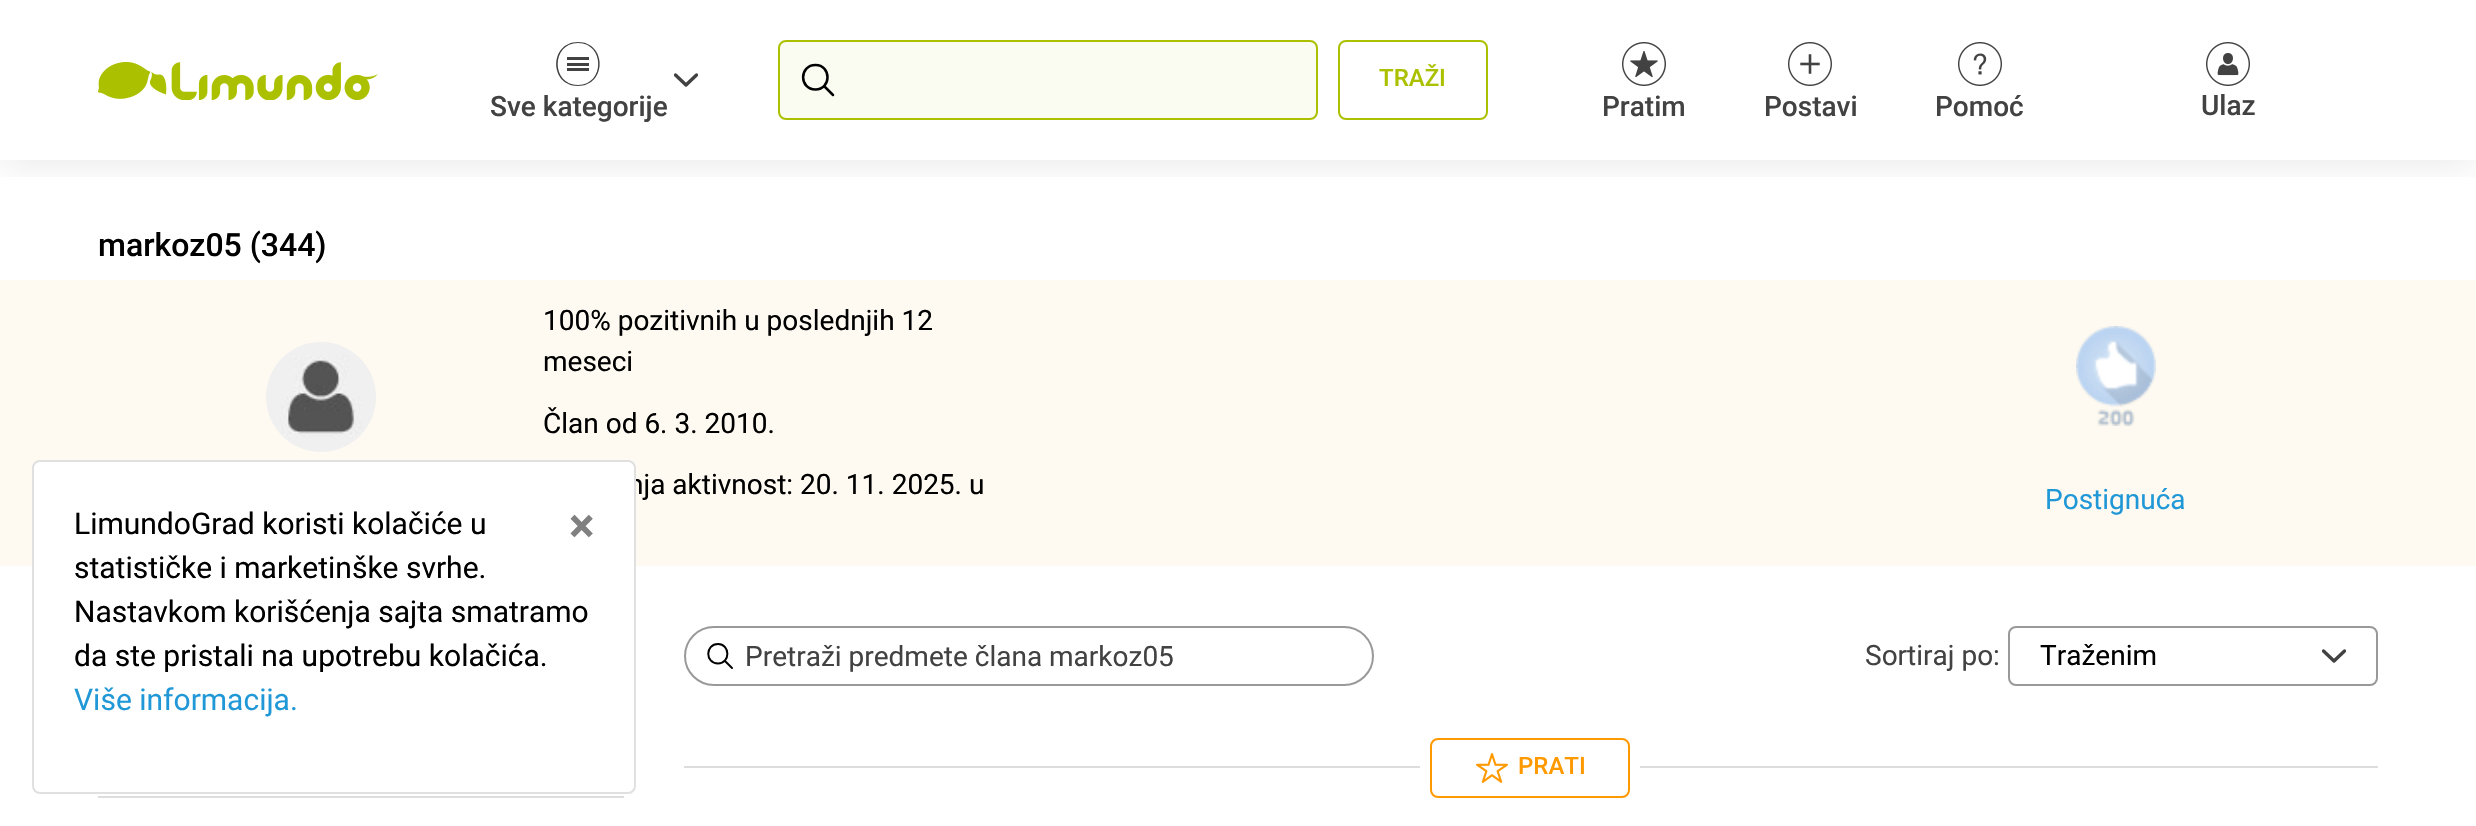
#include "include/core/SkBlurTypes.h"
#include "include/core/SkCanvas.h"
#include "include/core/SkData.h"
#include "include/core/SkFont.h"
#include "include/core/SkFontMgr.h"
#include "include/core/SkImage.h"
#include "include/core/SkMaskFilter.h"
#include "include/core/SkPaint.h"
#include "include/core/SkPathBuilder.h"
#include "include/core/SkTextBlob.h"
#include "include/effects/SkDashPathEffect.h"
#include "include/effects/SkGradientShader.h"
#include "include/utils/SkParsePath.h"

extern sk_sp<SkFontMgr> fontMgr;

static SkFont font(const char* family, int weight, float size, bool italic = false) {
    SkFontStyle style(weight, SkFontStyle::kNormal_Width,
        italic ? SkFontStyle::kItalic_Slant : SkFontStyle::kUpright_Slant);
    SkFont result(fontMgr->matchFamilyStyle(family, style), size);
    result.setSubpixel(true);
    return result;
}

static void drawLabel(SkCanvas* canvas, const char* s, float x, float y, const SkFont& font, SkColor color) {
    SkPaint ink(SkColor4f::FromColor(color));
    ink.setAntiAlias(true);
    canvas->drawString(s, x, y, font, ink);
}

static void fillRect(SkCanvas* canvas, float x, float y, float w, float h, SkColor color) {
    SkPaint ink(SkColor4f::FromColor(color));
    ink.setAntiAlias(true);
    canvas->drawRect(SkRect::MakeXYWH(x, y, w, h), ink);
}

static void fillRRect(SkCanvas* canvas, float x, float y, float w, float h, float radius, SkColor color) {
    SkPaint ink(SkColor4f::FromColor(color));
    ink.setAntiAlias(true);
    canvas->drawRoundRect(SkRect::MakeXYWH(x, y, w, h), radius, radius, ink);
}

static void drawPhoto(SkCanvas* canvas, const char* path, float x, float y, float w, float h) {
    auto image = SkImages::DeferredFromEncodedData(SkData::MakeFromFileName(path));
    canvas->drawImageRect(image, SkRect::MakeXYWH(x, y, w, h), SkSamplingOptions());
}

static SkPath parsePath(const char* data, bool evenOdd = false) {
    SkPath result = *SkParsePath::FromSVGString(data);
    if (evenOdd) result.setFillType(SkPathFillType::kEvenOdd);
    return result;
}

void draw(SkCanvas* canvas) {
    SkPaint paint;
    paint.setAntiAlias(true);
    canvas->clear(0xFFFFFFFF);
    canvas->save();
    canvas->clipRect(SkRect::MakeXYWH(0, 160, 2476, 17));
    paint.setColor(0x1A000000);
    paint.setMaskFilter(SkMaskFilter::MakeBlur(kNormal_SkBlurStyle, 20));
    canvas->drawRect(SkRect::MakeXYWH(0, 0, 2476, 160), paint);
    paint.setMaskFilter(nullptr);
    canvas->restore();
    drawPhoto(canvas, "assets/img1.png", 98, 62, 280, 38);
    paint.setColor(0xFFFAFCF1);
    canvas->drawRoundRect(SkRect::MakeXYWH(779, 41, 538, 78), 7, 7, paint);
    paint.setStroke(true);
    paint.setStrokeWidth(2);
    paint.setColor(0xFFABC100);
    canvas->drawRoundRect(SkRect::MakeXYWH(779, 41, 538, 78), 7, 7, paint);
    paint.setStrokeWidth(2.5f);
    paint.setColor(0xFF000000);
    canvas->drawPath(parsePath("M815.5 65C799 65 799 89.5 815.5 89.5C831.5 89.5 831.5 65 815.5 65Z"), paint);
    paint.setStrokeCap(SkPaint::kRound_Cap);
    canvas->drawPath(parsePath("M824.5 86.5L833 95"), paint);
    paint.setStrokeWidth(2);
    paint.setStrokeCap(SkPaint::kButt_Cap);
    paint.setColor(0xFFABC100);
    canvas->drawRoundRect(SkRect::MakeXYWH(1339, 41, 148, 78), 7, 7, paint);
    SkFont font1 = font("Roboto", 500, 24);
    drawLabel(canvas, "TRAŽI", 1379, 86, font1, 0xFFABC100);
    fillRect(canvas, 567, 63, 22, 3, 0xFF424242);
    fillRect(canvas, 567, 57, 22, 3, 0xFF424242);
    fillRect(canvas, 567, 68, 22, 3, 0xFF424242);
    paint.setStroke(false);
    paint.setColor(0xFF424242);
    canvas->drawPath(parsePath("M578 86C549 86 549 42 578 42C607 42 607 86 578 86ZM578 43C551 43 551 85 578 85C605 85 605 43 578 43Z"), paint);
    canvas->save();
    canvas->clipRect(SkRect::MakeXYWH(674, 68, 24, 24));
    paint.setStroke(true);
    paint.setStrokeWidth(3.4f);
    paint.setStrokeCap(SkPaint::kRound_Cap);
    paint.setStrokeJoin(SkPaint::kRound_Join);
    canvas->drawPath(parsePath("M675.5 75L686 85L696.5 75"), paint);
    canvas->restore();
    SkFont font2 = font("Roboto", 500, 28);
    drawLabel(canvas, "Sve kategorije", 490, 116, font2, 0xFF424242);
    drawPhoto(canvas, "assets/img2.png", 1622, 42, 44, 44);
    drawLabel(canvas, "Pratim", 1602, 116, font2, 0xFF424242);
    drawPhoto(canvas, "assets/img3.png", 1788, 42, 44, 44);
    drawLabel(canvas, "Postavi", 1764, 116, font2, 0xFF424242);
    drawPhoto(canvas, "assets/img4.png", 1958, 42, 44, 44);
    drawLabel(canvas, "Pomoć", 1935, 116, font2, 0xFF424242);
    drawPhoto(canvas, "assets/img5.png", 2206, 42, 44, 44);
    drawLabel(canvas, "Ulaz", 2201, 115, font2, 0xFF424242);
    SkFont font3 = font("Roboto", 500, 32);
    drawLabel(canvas, "markoz05 (344)", 98, 256, font3, 0xFF000000);
    fillRect(canvas, 0, 280, 2476, 286, 0xFFFEFAF1);
    drawPhoto(canvas, "assets/img6.png", 266, 342, 110, 110);
    SkFont font4 = font("Roboto", 400, 28);
    drawLabel(canvas, "100% pozitivnih u poslednjih 12", 543, 330, font4, 0xFF000000);
    drawLabel(canvas, "meseci", 543, 371, font4, 0xFF000000);
    drawLabel(canvas, "Član od 6. 3. 2010.", 543, 433, font4, 0xFF000000);
    drawLabel(canvas, "nja aktivnost: 20. 11. 2025. u", 628, 494, font4, 0xFF000000);
    drawPhoto(canvas, "assets/img7.png", 2076, 326, 80, 100);
    drawLabel(canvas, "Postignuća", 2045, 509, font4, 0xFF2098D7);
    paint.setStrokeWidth(2);
    paint.setStrokeCap(SkPaint::kButt_Cap);
    paint.setStrokeJoin(SkPaint::kMiter_Join);
    paint.setColor(0xFF999999);
    canvas->drawRoundRect(SkRect::MakeXYWH(685, 627, 688, 58), 29, 29, paint);
    paint.setColor(0xFF000000);
    canvas->drawPath(parsePath("M718 644C705 644 705 663.5 718 663.5C730.5 663.5 730.5 644 718 644Z"), paint);
    paint.setStrokeCap(SkPaint::kRound_Cap);
    canvas->drawPath(parsePath("M725 661L732 668"), paint);
    drawLabel(canvas, "Pretraži predmete člana markoz05", 745, 666, font4, 0xFF424242);
    drawLabel(canvas, "Sortiraj po:", 1865, 665, font4, 0xFF424242);
    paint.setStrokeCap(SkPaint::kButt_Cap);
    paint.setColor(0xFF999999);
    canvas->drawRoundRect(SkRect::MakeXYWH(2009, 627, 368, 58), 7, 7, paint);
    drawLabel(canvas, "Traženim", 2040, 665, font4, 0xFF000000);
    canvas->save();
    canvas->clipRect(SkRect::MakeXYWH(2322, 644, 24, 24));
    paint.setStrokeWidth(3.4f);
    paint.setStrokeCap(SkPaint::kRound_Cap);
    paint.setStrokeJoin(SkPaint::kRound_Join);
    paint.setColor(0xFF424242);
    canvas->drawPath(parsePath("M2323.5 651L2334 661L2344.5 651"), paint);
    canvas->restore();
    fillRect(canvas, 684, 766, 1694, 2, 0xFFDDDDDD);
    fillRect(canvas, 1420, 766, 220, 2, 0xFFFFFFFF);
    paint.setStrokeWidth(2);
    paint.setStrokeCap(SkPaint::kButt_Cap);
    paint.setStrokeJoin(SkPaint::kMiter_Join);
    paint.setColor(0xFFFF9900);
    canvas->drawRoundRect(SkRect::MakeXYWH(1431, 739, 198, 58), 7, 7, paint);
    drawPhoto(canvas, "assets/img8.png", 1476, 753, 32, 30);
    drawLabel(canvas, "PRATI", 1518, 774, font1, 0xFFFF9900);
    fillRect(canvas, 98, 796, 526, 2, 0xFFDDDDDD);
    fillRRect(canvas, 32, 460, 604, 334, 8, 0xFFFFFFFF);
    paint.setColor(0x1F000000);
    canvas->drawRoundRect(SkRect::MakeXYWH(33, 461, 602, 332), 7, 7, paint);
    SkFont font5 = font("Roboto", 400, 30);
    drawLabel(canvas, "LimundoGrad koristi kolačiće u", 74, 534, font5, 0xFF000000);
    drawLabel(canvas, "statističke i marketinške svrhe.", 74, 578, font5, 0xFF000000);
    drawLabel(canvas, "Nastavkom korišćenja sajta smatramo", 74, 622, font5, 0xFF000000);
    drawLabel(canvas, "da ste pristali na upotrebu kolačića.", 74, 666, font5, 0xFF000000);
    drawLabel(canvas, "Više informacija.", 74, 710, font5, 0xFF2098D7);
    SkFont font6 = font("Roboto", 700, 48);
    drawLabel(canvas, "×", 569, 542, font6, 0xFF808080);
}
